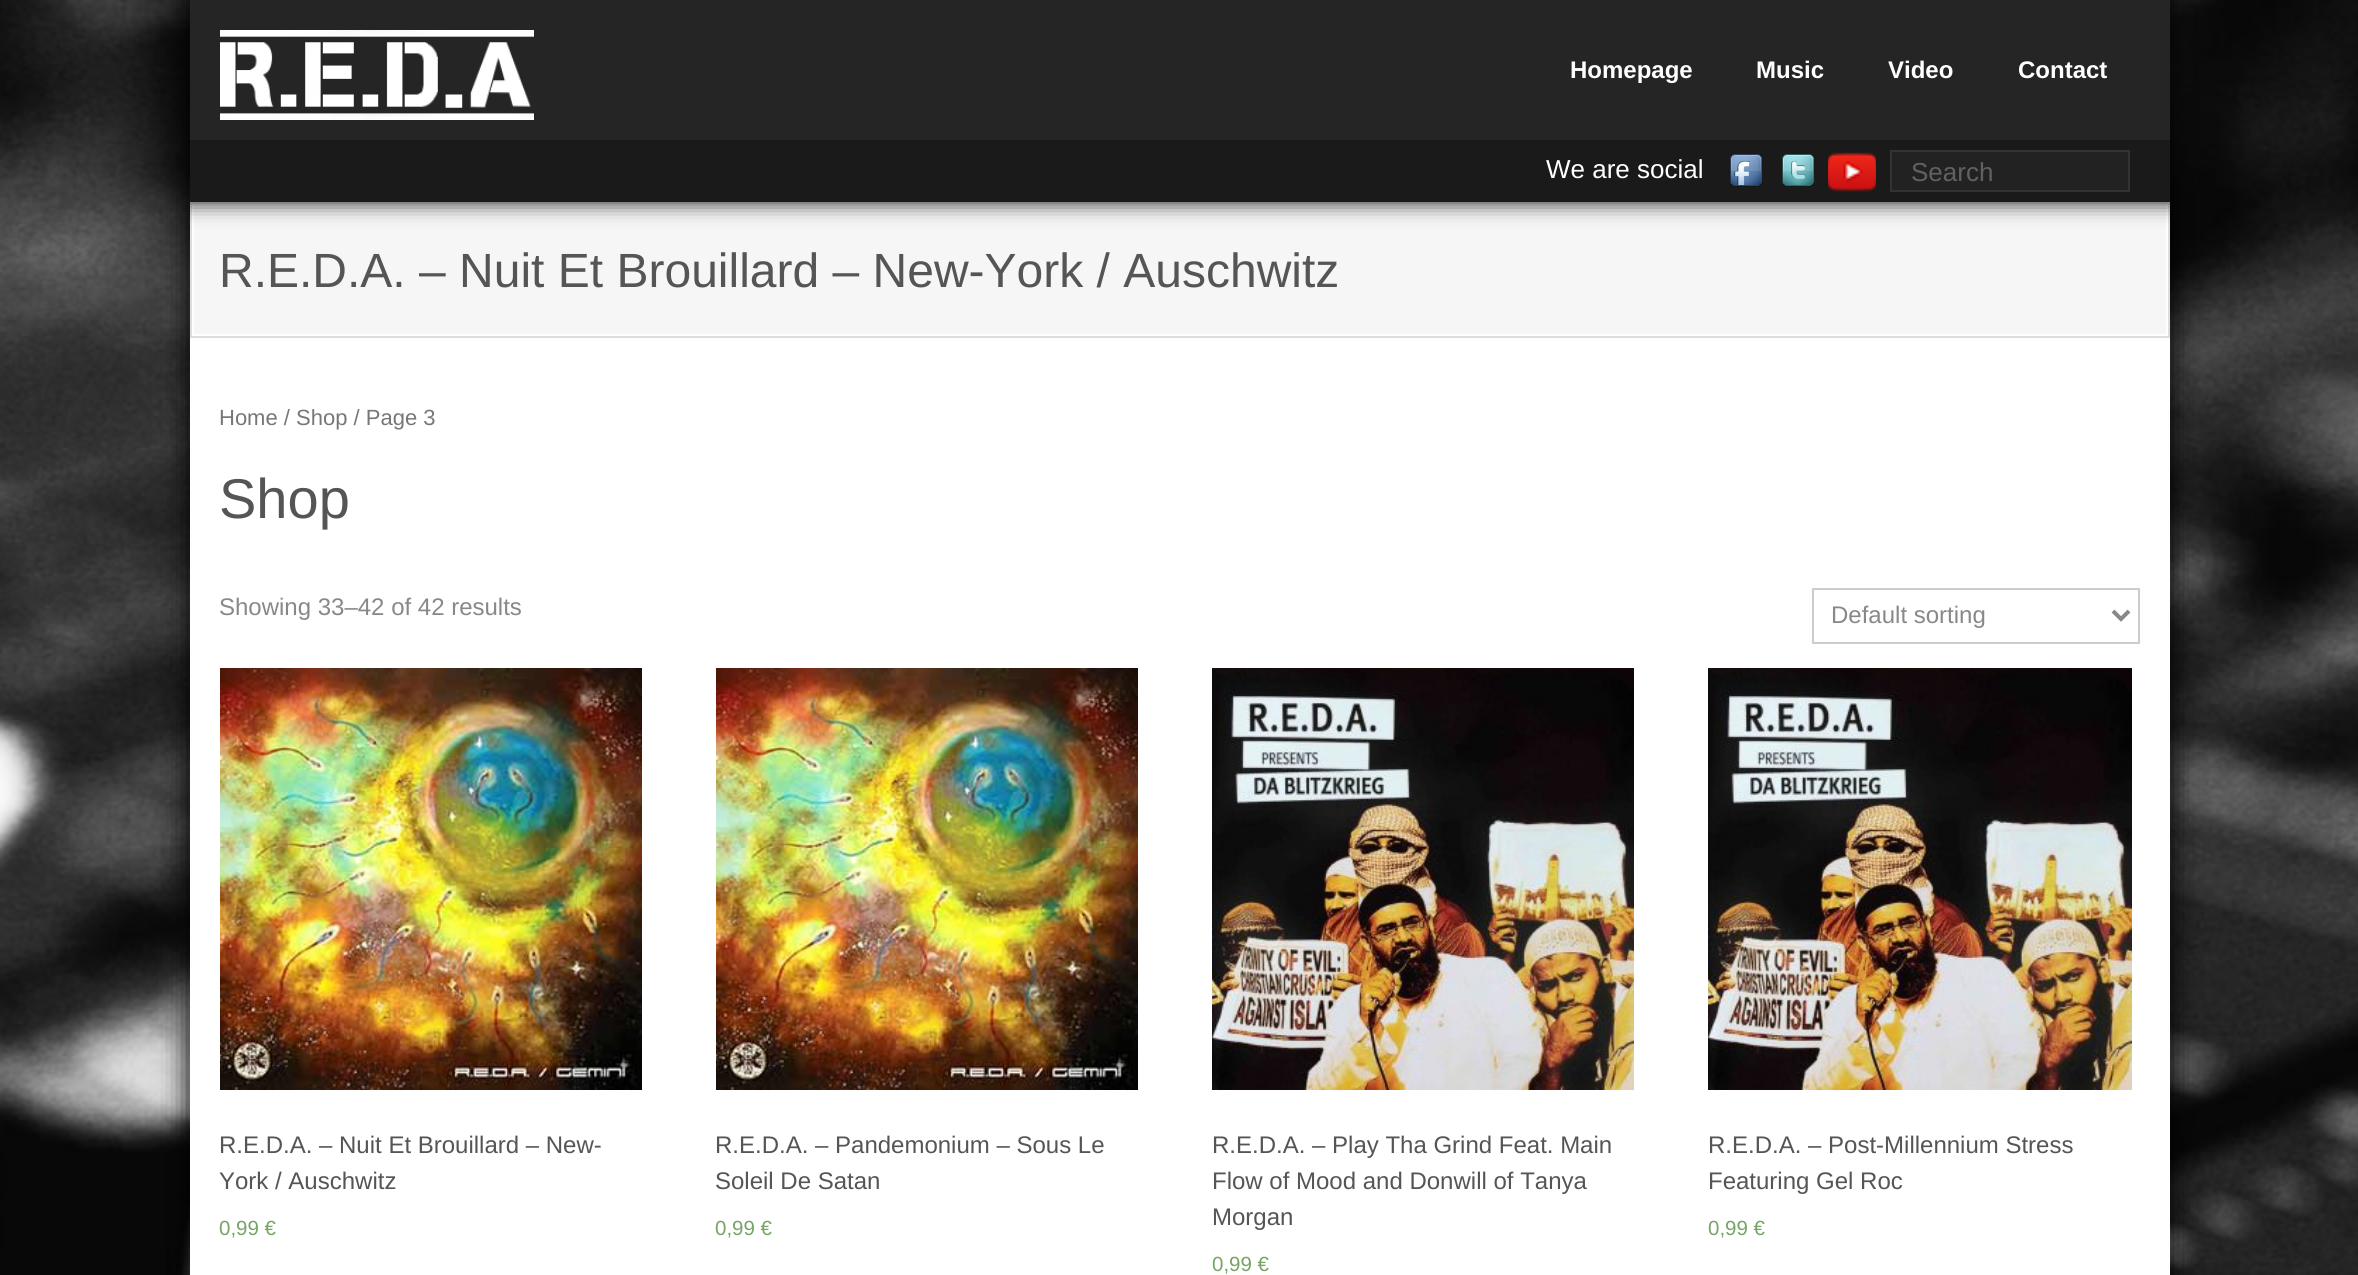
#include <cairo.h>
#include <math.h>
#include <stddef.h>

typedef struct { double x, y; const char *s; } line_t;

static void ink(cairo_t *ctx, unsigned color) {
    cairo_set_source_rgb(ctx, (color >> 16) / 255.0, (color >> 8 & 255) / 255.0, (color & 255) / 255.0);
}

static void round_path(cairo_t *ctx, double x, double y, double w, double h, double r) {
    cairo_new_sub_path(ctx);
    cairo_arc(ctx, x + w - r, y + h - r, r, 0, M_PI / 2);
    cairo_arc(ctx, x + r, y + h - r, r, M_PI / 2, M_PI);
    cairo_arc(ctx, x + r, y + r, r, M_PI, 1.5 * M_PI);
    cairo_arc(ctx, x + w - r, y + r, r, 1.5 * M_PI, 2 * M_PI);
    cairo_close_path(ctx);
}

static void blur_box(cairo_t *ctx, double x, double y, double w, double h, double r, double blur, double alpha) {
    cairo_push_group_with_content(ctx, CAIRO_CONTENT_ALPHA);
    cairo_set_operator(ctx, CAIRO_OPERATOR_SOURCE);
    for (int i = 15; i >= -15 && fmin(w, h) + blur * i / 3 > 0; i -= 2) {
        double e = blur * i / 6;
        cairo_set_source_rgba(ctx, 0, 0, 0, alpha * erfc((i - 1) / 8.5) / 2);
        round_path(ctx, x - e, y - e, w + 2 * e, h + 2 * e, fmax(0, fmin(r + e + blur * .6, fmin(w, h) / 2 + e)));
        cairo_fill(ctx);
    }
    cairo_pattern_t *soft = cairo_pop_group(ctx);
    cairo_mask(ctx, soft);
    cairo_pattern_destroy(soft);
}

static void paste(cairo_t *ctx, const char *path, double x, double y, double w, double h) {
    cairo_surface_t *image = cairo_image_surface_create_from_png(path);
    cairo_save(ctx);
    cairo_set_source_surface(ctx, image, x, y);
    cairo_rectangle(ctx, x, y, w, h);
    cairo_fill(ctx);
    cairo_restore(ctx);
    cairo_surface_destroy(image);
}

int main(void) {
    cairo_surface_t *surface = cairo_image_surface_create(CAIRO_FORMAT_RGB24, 2358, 1275);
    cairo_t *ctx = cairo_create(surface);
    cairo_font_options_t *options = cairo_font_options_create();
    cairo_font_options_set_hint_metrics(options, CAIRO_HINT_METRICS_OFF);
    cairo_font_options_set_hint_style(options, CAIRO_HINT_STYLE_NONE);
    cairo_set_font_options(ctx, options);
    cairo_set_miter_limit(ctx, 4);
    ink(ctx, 0xFFFFFF);
    cairo_paint(ctx);
    paste(ctx, "media/1.png", 0, 0, 2358, 1275);
    ink(ctx, 0x000000);
    blur_box(ctx, 188, -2, 1984, 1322, 0, 15, 1);
    ink(ctx, 0xFFFFFF);
    cairo_rectangle(ctx, 190, 338, 1980, 937);
    cairo_fill(ctx);
    ink(ctx, 0xF6F6F6);
    cairo_rectangle(ctx, 193, 205, 1974, 130);
    cairo_fill_preserve(ctx);
    ink(ctx, 0xFFFFFF);
    cairo_stroke(ctx);
    cairo_rectangle(ctx, 191, 203, 1978, 134);
    ink(ctx, 0xDDDDDD);
    cairo_stroke(ctx);
    cairo_save(ctx);
    cairo_rectangle(ctx, 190, 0, 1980, 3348);
    cairo_clip(ctx);
    ink(ctx, 0x333333);
    blur_box(ctx, 188, -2, 1984, 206, 0, 10, 1);
    cairo_restore(ctx);
    ink(ctx, 0x252525);
    cairo_rectangle(ctx, 190, 0, 1980, 140);
    cairo_fill(ctx);
    paste(ctx, "media/2.png", 220, 30, 314, 90);
    cairo_select_font_face(ctx, "Liberation Sans", CAIRO_FONT_SLANT_NORMAL, CAIRO_FONT_WEIGHT_BOLD);
    cairo_set_font_size(ctx, 24);
    ink(ctx, 0xFFFFFF);
    {
        static const line_t items[] = {
            {1570, 78, "Homepage"},
            {1756, 78, "Music"},
            {1888, 78, "Video"},
            {2018, 78, "Contact"},
        };
        for (size_t i = 0; i < sizeof items / sizeof *items; i++) {
            cairo_move_to(ctx, items[i].x, items[i].y);
            cairo_show_text(ctx, items[i].s);
        }
    }
    ink(ctx, 0x1A1A1A);
    cairo_rectangle(ctx, 190, 140, 1980, 62);
    cairo_fill(ctx);
    cairo_select_font_face(ctx, "Liberation Sans", CAIRO_FONT_SLANT_NORMAL, CAIRO_FONT_WEIGHT_NORMAL);
    cairo_set_font_size(ctx, 26);
    ink(ctx, 0xFFFFFF);
    cairo_move_to(ctx, 1546, 178);
    cairo_show_text(ctx, "We are social");
    paste(ctx, "media/3.png", 1730, 154, 32, 33);
    paste(ctx, "media/4.png", 1782, 154, 32, 33);
    paste(ctx, "media/5.png", 1828, 152, 48, 40);
    ink(ctx, 0x222222);
    cairo_rectangle(ctx, 1891, 151, 238, 40);
    cairo_fill_preserve(ctx);
    ink(ctx, 0x333333);
    cairo_stroke(ctx);
    ink(ctx, 0x616161);
    cairo_move_to(ctx, 1911, 181);
    cairo_show_text(ctx, "Search");
    cairo_set_font_size(ctx, 48);
    ink(ctx, 0x555555);
    cairo_move_to(ctx, 219, 287);
    cairo_show_text(ctx, "R.E.D.A. – Nuit Et Brouillard – New-York / Auschwitz");
    cairo_set_font_size(ctx, 22);
    ink(ctx, 0x777777);
    cairo_move_to(ctx, 219, 425);
    cairo_show_text(ctx, "Home / Shop / Page 3");
    cairo_set_font_size(ctx, 56);
    ink(ctx, 0x555555);
    cairo_move_to(ctx, 219, 518);
    cairo_show_text(ctx, "Shop");
    cairo_set_font_size(ctx, 24);
    ink(ctx, 0x888888);
    cairo_move_to(ctx, 219, 615);
    cairo_show_text(ctx, "Showing 33–42 of 42 results");
    cairo_rectangle(ctx, 1813, 589, 326, 54);
    ink(ctx, 0xCCCCCC);
    cairo_stroke(ctx);
    cairo_new_path(ctx);
    cairo_move_to(ctx, 2113, 611);
    cairo_line_to(ctx, 2121, 619);
    cairo_line_to(ctx, 2129, 611);
    ink(ctx, 0x888888);
    cairo_set_line_width(ctx, 4);
    cairo_stroke(ctx);
    cairo_move_to(ctx, 1831, 623);
    cairo_show_text(ctx, "Default sorting");
    paste(ctx, "media/6.png", 220, 668, 422, 422);
    ink(ctx, 0x555555);
    cairo_move_to(ctx, 219, 1153);
    cairo_show_text(ctx, "R.E.D.A. – Nuit Et Brouillard – New-");
    cairo_move_to(ctx, 219, 1189);
    cairo_show_text(ctx, "York / Auschwitz");
    cairo_set_font_size(ctx, 20.5);
    ink(ctx, 0x77A464);
    cairo_move_to(ctx, 219, 1235);
    cairo_show_text(ctx, "0,99 €");
    paste(ctx, "media/6.png", 716, 668, 422, 422);
    cairo_set_font_size(ctx, 24);
    ink(ctx, 0x555555);
    cairo_move_to(ctx, 715, 1153);
    cairo_show_text(ctx, "R.E.D.A. – Pandemonium – Sous Le");
    cairo_move_to(ctx, 715, 1189);
    cairo_show_text(ctx, "Soleil De Satan");
    cairo_set_font_size(ctx, 20.5);
    ink(ctx, 0x77A464);
    cairo_move_to(ctx, 715, 1235);
    cairo_show_text(ctx, "0,99 €");
    paste(ctx, "media/7.png", 1212, 668, 422, 422);
    cairo_set_font_size(ctx, 24);
    ink(ctx, 0x555555);
    {
        static const line_t items[] = {
            {1212, 1153, "R.E.D.A. – Play Tha Grind Feat. Main"},
            {1212, 1189, "Flow of Mood and Donwill of Tanya"},
            {1212, 1225, "Morgan"},
        };
        for (size_t i = 0; i < sizeof items / sizeof *items; i++) {
            cairo_move_to(ctx, items[i].x, items[i].y);
            cairo_show_text(ctx, items[i].s);
        }
    }
    cairo_set_font_size(ctx, 20.5);
    ink(ctx, 0x77A464);
    cairo_move_to(ctx, 1212, 1271);
    cairo_show_text(ctx, "0,99 €");
    paste(ctx, "media/8.png", 1708, 668, 424, 422);
    cairo_set_font_size(ctx, 24);
    ink(ctx, 0x555555);
    cairo_move_to(ctx, 1708, 1153);
    cairo_show_text(ctx, "R.E.D.A. – Post-Millennium Stress");
    cairo_move_to(ctx, 1708, 1189);
    cairo_show_text(ctx, "Featuring Gel Roc");
    cairo_set_font_size(ctx, 20.5);
    ink(ctx, 0x77A464);
    cairo_move_to(ctx, 1708, 1235);
    cairo_show_text(ctx, "0,99 €");
    cairo_surface_write_to_png(surface, "image.png");
    cairo_font_options_destroy(options);
    cairo_destroy(ctx);
    cairo_surface_destroy(surface);
    return 0;
}
